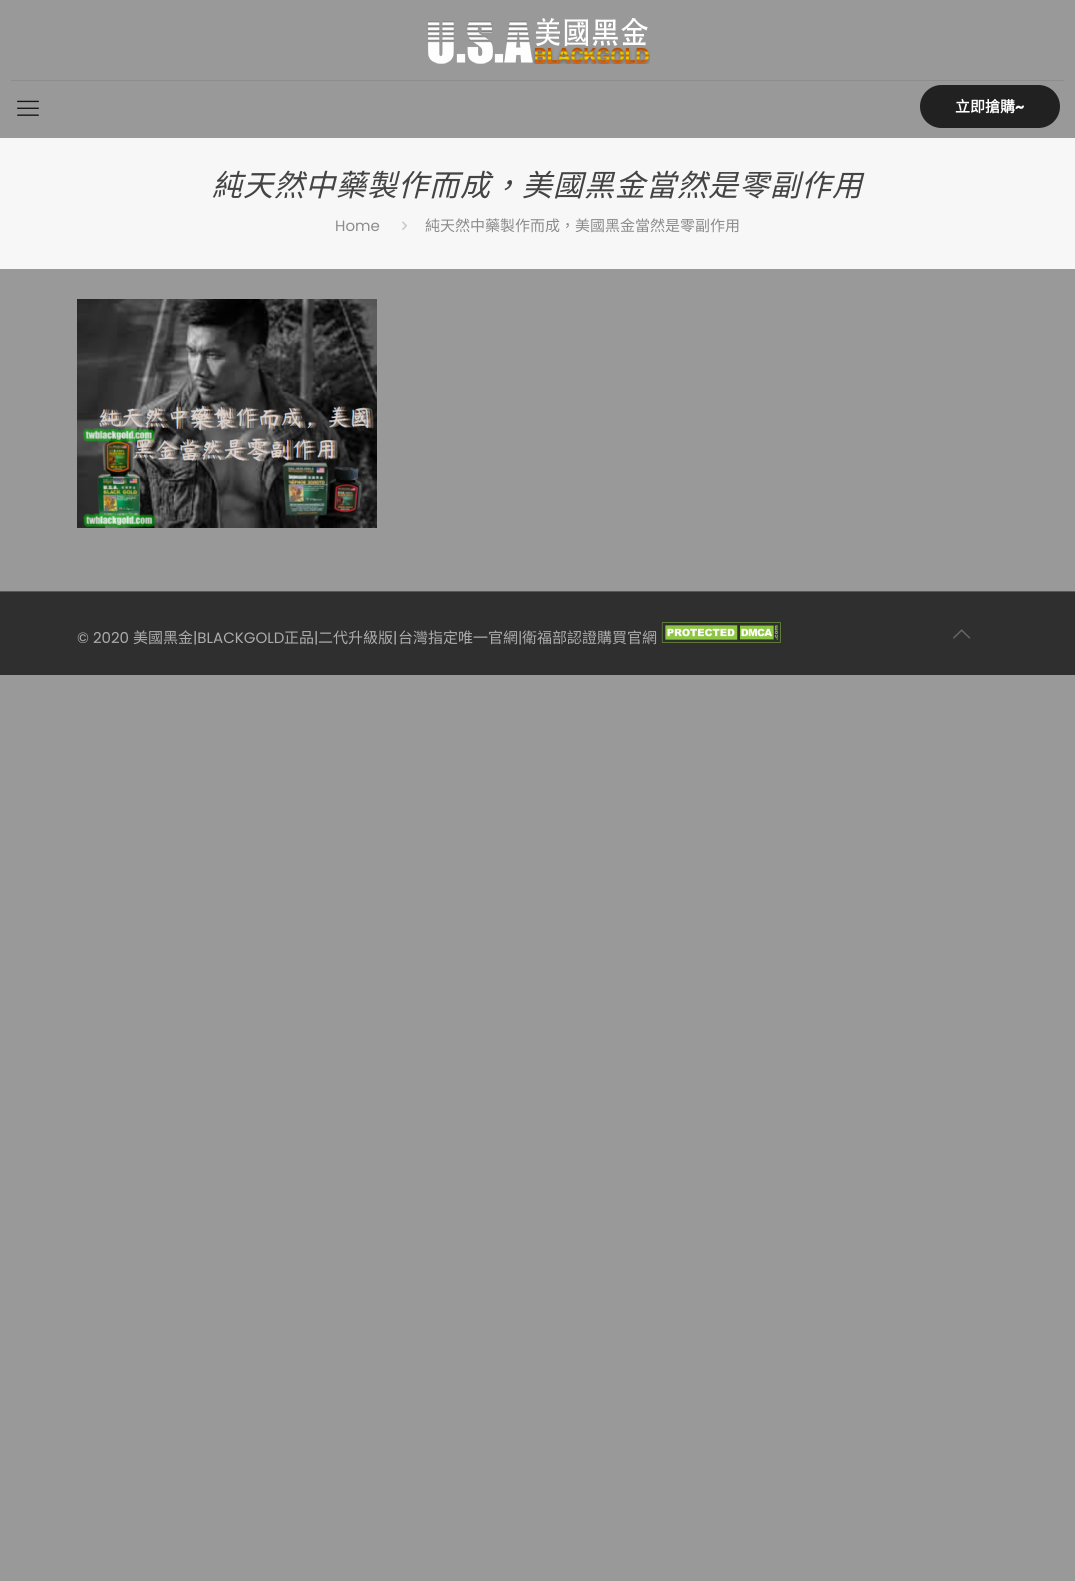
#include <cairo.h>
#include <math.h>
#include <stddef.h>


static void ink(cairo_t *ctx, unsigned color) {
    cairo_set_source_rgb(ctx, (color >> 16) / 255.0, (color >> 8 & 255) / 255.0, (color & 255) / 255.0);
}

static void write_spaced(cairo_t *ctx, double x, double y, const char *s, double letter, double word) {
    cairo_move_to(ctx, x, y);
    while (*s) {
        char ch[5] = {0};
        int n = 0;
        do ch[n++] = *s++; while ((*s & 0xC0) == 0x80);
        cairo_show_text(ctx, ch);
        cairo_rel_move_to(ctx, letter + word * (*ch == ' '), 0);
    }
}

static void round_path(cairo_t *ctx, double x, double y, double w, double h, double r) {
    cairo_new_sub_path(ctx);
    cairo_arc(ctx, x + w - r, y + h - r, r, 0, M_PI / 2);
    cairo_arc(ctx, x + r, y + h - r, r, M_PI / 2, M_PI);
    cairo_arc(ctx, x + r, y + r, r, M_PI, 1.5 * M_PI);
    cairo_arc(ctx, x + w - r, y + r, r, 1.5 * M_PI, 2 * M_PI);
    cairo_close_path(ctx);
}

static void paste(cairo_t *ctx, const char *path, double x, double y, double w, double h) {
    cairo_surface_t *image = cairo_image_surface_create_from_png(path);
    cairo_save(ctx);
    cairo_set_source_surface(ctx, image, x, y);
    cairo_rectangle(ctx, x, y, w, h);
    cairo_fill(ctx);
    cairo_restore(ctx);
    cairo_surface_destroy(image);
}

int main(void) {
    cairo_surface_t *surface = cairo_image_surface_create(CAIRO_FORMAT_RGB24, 1075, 1581);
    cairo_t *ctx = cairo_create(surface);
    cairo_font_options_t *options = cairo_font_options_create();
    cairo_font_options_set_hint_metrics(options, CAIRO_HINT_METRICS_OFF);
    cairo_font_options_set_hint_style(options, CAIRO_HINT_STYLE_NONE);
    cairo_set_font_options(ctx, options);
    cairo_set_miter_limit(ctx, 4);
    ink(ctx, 0x999999);
    cairo_paint(ctx);
    ink(ctx, 0x8D8D8D);
    cairo_rectangle(ctx, 11, 80, 1053, 1);
    cairo_fill(ctx);
    paste(ctx, "media/1.png", 427, 18, 223, 46);
    paste(ctx, "media/2.png", 17, 100, 22, 16);
    ink(ctx, 0x212121);
    round_path(ctx, 920, 85, 140, 43, 21.5);
    cairo_fill(ctx);
    cairo_select_font_face(ctx, "Noto Sans CJK TC", CAIRO_FONT_SLANT_NORMAL, CAIRO_FONT_WEIGHT_BOLD);
    cairo_set_font_size(ctx, 15);
    ink(ctx, 0xFFFFFF);
    cairo_move_to(ctx, 955, 112);
    cairo_show_text(ctx, "立即搶購");
    cairo_select_font_face(ctx, "Poppins", CAIRO_FONT_SLANT_NORMAL, CAIRO_FONT_WEIGHT_BOLD);
    cairo_move_to(ctx, 1015, 112);
    cairo_show_text(ctx, "~");
    ink(ctx, 0xF7F7F7);
    cairo_rectangle(ctx, 0, 138, 1075, 131);
    cairo_fill(ctx);
    cairo_select_font_face(ctx, "Noto Sans CJK TC", CAIRO_FONT_SLANT_ITALIC, CAIRO_FONT_WEIGHT_NORMAL);
    cairo_set_font_size(ctx, 30);
    ink(ctx, 0x444444);
    write_spaced(ctx, 212, 196, "純天然中藥製作而成，美國黑金當然是零副作用", 1, 0);
    cairo_select_font_face(ctx, "Poppins", CAIRO_FONT_SLANT_NORMAL, CAIRO_FONT_WEIGHT_NORMAL);
    cairo_set_font_size(ctx, 15);
    ink(ctx, 0x8C8C8C);
    cairo_move_to(ctx, 335, 231);
    cairo_show_text(ctx, "Home");
    paste(ctx, "media/3.png", 402, 221, 5, 9);
    cairo_select_font_face(ctx, "Noto Sans CJK TC", CAIRO_FONT_SLANT_NORMAL, CAIRO_FONT_WEIGHT_NORMAL);
    cairo_move_to(ctx, 425, 231);
    cairo_show_text(ctx, "純天然中藥製作而成，美國黑金當然是零副作用");
    paste(ctx, "media/4.png", 77, 299, 300, 229);
    ink(ctx, 0x2F2F2F);
    cairo_rectangle(ctx, 0, 592, 1075, 83);
    cairo_fill(ctx);
    ink(ctx, 0x585858);
    cairo_rectangle(ctx, 0, 591, 1075, 1);
    cairo_fill(ctx);
    cairo_select_font_face(ctx, "Poppins", CAIRO_FONT_SLANT_NORMAL, CAIRO_FONT_WEIGHT_NORMAL);
    ink(ctx, 0xACACAC);
    cairo_move_to(ctx, 77, 643);
    cairo_show_text(ctx, "© 2020");
    cairo_select_font_face(ctx, "Noto Sans CJK TC", CAIRO_FONT_SLANT_NORMAL, CAIRO_FONT_WEIGHT_NORMAL);
    cairo_move_to(ctx, 133, 643);
    cairo_show_text(ctx, "美國黑金");
    cairo_select_font_face(ctx, "Poppins", CAIRO_FONT_SLANT_NORMAL, CAIRO_FONT_WEIGHT_NORMAL);
    cairo_move_to(ctx, 193, 643);
    cairo_show_text(ctx, "|BLACKGOLD");
    cairo_select_font_face(ctx, "Noto Sans CJK TC", CAIRO_FONT_SLANT_NORMAL, CAIRO_FONT_WEIGHT_NORMAL);
    cairo_move_to(ctx, 284, 643);
    cairo_show_text(ctx, "正品");
    cairo_select_font_face(ctx, "Poppins", CAIRO_FONT_SLANT_NORMAL, CAIRO_FONT_WEIGHT_NORMAL);
    cairo_move_to(ctx, 314, 643);
    cairo_show_text(ctx, "|");
    cairo_select_font_face(ctx, "Noto Sans CJK TC", CAIRO_FONT_SLANT_NORMAL, CAIRO_FONT_WEIGHT_NORMAL);
    cairo_move_to(ctx, 318, 643);
    cairo_show_text(ctx, "二代升級版");
    cairo_select_font_face(ctx, "Poppins", CAIRO_FONT_SLANT_NORMAL, CAIRO_FONT_WEIGHT_NORMAL);
    cairo_move_to(ctx, 393, 643);
    cairo_show_text(ctx, "|");
    cairo_select_font_face(ctx, "Noto Sans CJK TC", CAIRO_FONT_SLANT_NORMAL, CAIRO_FONT_WEIGHT_NORMAL);
    cairo_move_to(ctx, 398, 643);
    cairo_show_text(ctx, "台灣指定唯一官網");
    cairo_select_font_face(ctx, "Poppins", CAIRO_FONT_SLANT_NORMAL, CAIRO_FONT_WEIGHT_NORMAL);
    cairo_move_to(ctx, 518, 643);
    cairo_show_text(ctx, "|");
    cairo_select_font_face(ctx, "Noto Sans CJK TC", CAIRO_FONT_SLANT_NORMAL, CAIRO_FONT_WEIGHT_NORMAL);
    cairo_move_to(ctx, 522, 643);
    cairo_show_text(ctx, "衛福部認證購買官網");
    paste(ctx, "media/5.png", 661, 622, 120, 21);
    paste(ctx, "media/6.png", 953, 629, 18, 10);
    cairo_surface_write_to_png(surface, "image.png");
    cairo_font_options_destroy(options);
    cairo_destroy(ctx);
    cairo_surface_destroy(surface);
    return 0;
}
